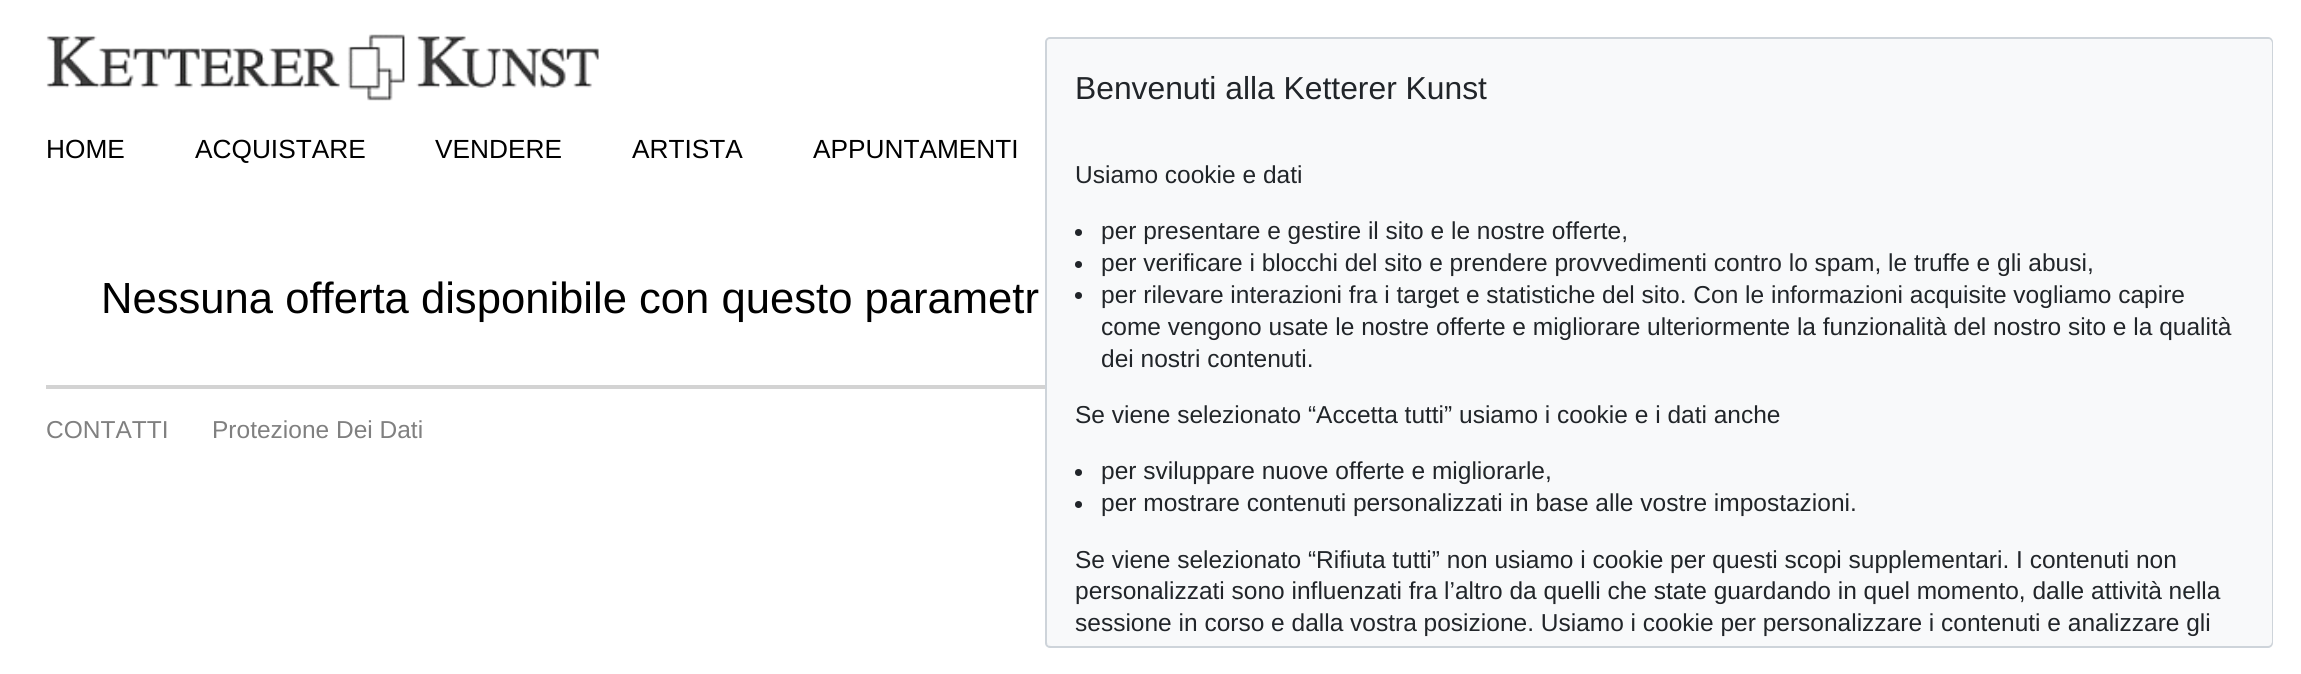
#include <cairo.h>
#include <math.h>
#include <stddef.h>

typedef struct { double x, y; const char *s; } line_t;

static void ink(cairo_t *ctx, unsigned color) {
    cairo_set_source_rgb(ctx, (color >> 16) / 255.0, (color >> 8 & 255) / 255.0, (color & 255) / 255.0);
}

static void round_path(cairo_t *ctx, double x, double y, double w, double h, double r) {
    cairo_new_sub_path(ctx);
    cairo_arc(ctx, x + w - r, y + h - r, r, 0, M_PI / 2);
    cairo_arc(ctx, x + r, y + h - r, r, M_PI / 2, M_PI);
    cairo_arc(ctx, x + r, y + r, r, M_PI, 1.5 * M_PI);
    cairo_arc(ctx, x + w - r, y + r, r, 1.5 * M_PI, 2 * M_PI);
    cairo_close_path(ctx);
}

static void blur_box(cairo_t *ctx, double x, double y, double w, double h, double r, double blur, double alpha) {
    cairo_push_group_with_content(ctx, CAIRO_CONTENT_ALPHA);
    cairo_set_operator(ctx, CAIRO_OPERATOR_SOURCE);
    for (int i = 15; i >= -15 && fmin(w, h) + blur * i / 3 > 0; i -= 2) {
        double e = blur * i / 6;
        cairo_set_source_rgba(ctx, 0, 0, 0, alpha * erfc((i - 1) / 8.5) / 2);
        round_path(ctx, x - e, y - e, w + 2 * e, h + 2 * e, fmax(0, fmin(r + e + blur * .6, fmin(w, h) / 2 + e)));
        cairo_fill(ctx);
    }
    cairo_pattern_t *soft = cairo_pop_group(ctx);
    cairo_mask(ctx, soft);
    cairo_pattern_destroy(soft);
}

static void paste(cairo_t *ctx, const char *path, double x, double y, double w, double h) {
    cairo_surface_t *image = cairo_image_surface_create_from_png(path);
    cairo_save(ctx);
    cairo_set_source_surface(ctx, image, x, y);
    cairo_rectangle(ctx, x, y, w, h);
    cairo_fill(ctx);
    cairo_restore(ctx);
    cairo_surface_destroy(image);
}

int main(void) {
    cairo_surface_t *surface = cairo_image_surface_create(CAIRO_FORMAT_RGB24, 2301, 674);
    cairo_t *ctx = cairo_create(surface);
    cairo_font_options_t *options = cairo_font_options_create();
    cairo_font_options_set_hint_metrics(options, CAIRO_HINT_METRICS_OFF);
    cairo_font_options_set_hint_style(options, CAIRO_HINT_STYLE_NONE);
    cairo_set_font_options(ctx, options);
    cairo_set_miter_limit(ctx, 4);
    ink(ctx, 0xFFFFFF);
    cairo_paint(ctx);
    paste(ctx, "media/1.png", 46, 34, 554, 67);
    cairo_select_font_face(ctx, "Liberation Sans", CAIRO_FONT_SLANT_NORMAL, CAIRO_FONT_WEIGHT_NORMAL);
    cairo_set_font_size(ctx, 26.25);
    ink(ctx, 0x000000);
    {
        static const line_t items[] = {
            {46, 158, "HOME"},
            {195, 158, "ACQUISTARE"},
            {435, 158, "VENDERE"},
            {632, 158, "ARTISTA"},
            {813, 158, "APPUNTAMENTI"},
        };
        for (size_t i = 0; i < sizeof items / sizeof *items; i++) {
            cairo_move_to(ctx, items[i].x, items[i].y);
            cairo_show_text(ctx, items[i].s);
        }
    }
    cairo_set_font_size(ctx, 43.6);
    cairo_move_to(ctx, 101, 313);
    cairo_show_text(ctx, "Nessuna offerta disponibile con questo parametr");
    ink(ctx, 0xD3D3D3);
    cairo_rectangle(ctx, 46, 385, 999, 4);
    cairo_fill(ctx);
    cairo_set_font_size(ctx, 24.5);
    ink(ctx, 0x808080);
    cairo_move_to(ctx, 46, 438);
    cairo_show_text(ctx, "CONTATTI");
    cairo_move_to(ctx, 212, 438);
    cairo_show_text(ctx, "Protezione Dei Dati");
    round_path(ctx, 1046, 38, 1226, 609, 4);
    ink(ctx, 0xCED4DA);
    cairo_stroke(ctx);
    cairo_save(ctx);
    round_path(ctx, 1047, 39, 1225, 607, 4);
    cairo_clip(ctx);
    ink(ctx, 0x000000);
    blur_box(ctx, 1047, 67, 1225, 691, 0, 28, 0.4);
    cairo_restore(ctx);
    ink(ctx, 0xF8F9FA);
    round_path(ctx, 1047, 39, 1225, 607, 4);
    cairo_fill(ctx);
    cairo_set_font_size(ctx, 31.8);
    ink(ctx, 0x212529);
    cairo_move_to(ctx, 1075, 99);
    cairo_show_text(ctx, "Benvenuti alla Ketterer Kunst");
    cairo_set_font_size(ctx, 24.5);
    cairo_move_to(ctx, 1075, 183);
    cairo_show_text(ctx, "Usiamo cookie e dati");
    cairo_new_path(ctx);
    cairo_arc(ctx, 1078.5, 232.5, 3.5, 0, 2 * M_PI);
    cairo_fill(ctx);
    cairo_move_to(ctx, 1101, 239);
    cairo_show_text(ctx, "per presentare e gestire il sito e le nostre offerte,");
    cairo_new_path(ctx);
    cairo_arc(ctx, 1078.5, 264.5, 3.5, 0, 2 * M_PI);
    cairo_fill(ctx);
    cairo_move_to(ctx, 1101, 271);
    cairo_show_text(ctx, "per verificare i blocchi del sito e prendere provvedimenti contro lo spam, le truffe e gli abusi,");
    cairo_new_path(ctx);
    cairo_arc(ctx, 1078.5, 295.5, 3.5, 0, 2 * M_PI);
    cairo_fill(ctx);
    {
        static const line_t items[] = {
            {1101, 303, "per rilevare interazioni fra i target e statistiche del sito. Con le informazioni acquisite vogliamo capire"},
            {1101, 335, "come vengono usate le nostre offerte e migliorare ulteriormente la funzionalità del nostro sito e la qualità"},
            {1101, 367, "dei nostri contenuti."},
            {1075, 423, "Se viene selezionato “Accetta tutti” usiamo i cookie e i dati anche"},
        };
        for (size_t i = 0; i < sizeof items / sizeof *items; i++) {
            cairo_move_to(ctx, items[i].x, items[i].y);
            cairo_show_text(ctx, items[i].s);
        }
    }
    cairo_new_path(ctx);
    cairo_arc(ctx, 1078.5, 472.5, 3.5, 0, 2 * M_PI);
    cairo_fill(ctx);
    cairo_move_to(ctx, 1101, 479);
    cairo_show_text(ctx, "per sviluppare nuove offerte e migliorarle,");
    cairo_new_path(ctx);
    cairo_arc(ctx, 1078.5, 504.5, 3.5, 0, 2 * M_PI);
    cairo_fill(ctx);
    {
        static const line_t items[] = {
            {1101, 511, "per mostrare contenuti personalizzati in base alle vostre impostazioni."},
            {1075, 568, "Se viene selezionato “Rifiuta tutti” non usiamo i cookie per questi scopi supplementari. I contenuti non"},
            {1075, 599, "personalizzati sono influenzati fra l’altro da quelli che state guardando in quel momento, dalle attività nella"},
            {1075, 631, "sessione in corso e dalla vostra posizione. Usiamo i cookie per personalizzare i contenuti e analizzare gli"},
        };
        for (size_t i = 0; i < sizeof items / sizeof *items; i++) {
            cairo_move_to(ctx, items[i].x, items[i].y);
            cairo_show_text(ctx, items[i].s);
        }
    }
    cairo_surface_write_to_png(surface, "image.png");
    cairo_font_options_destroy(options);
    cairo_destroy(ctx);
    cairo_surface_destroy(surface);
    return 0;
}
